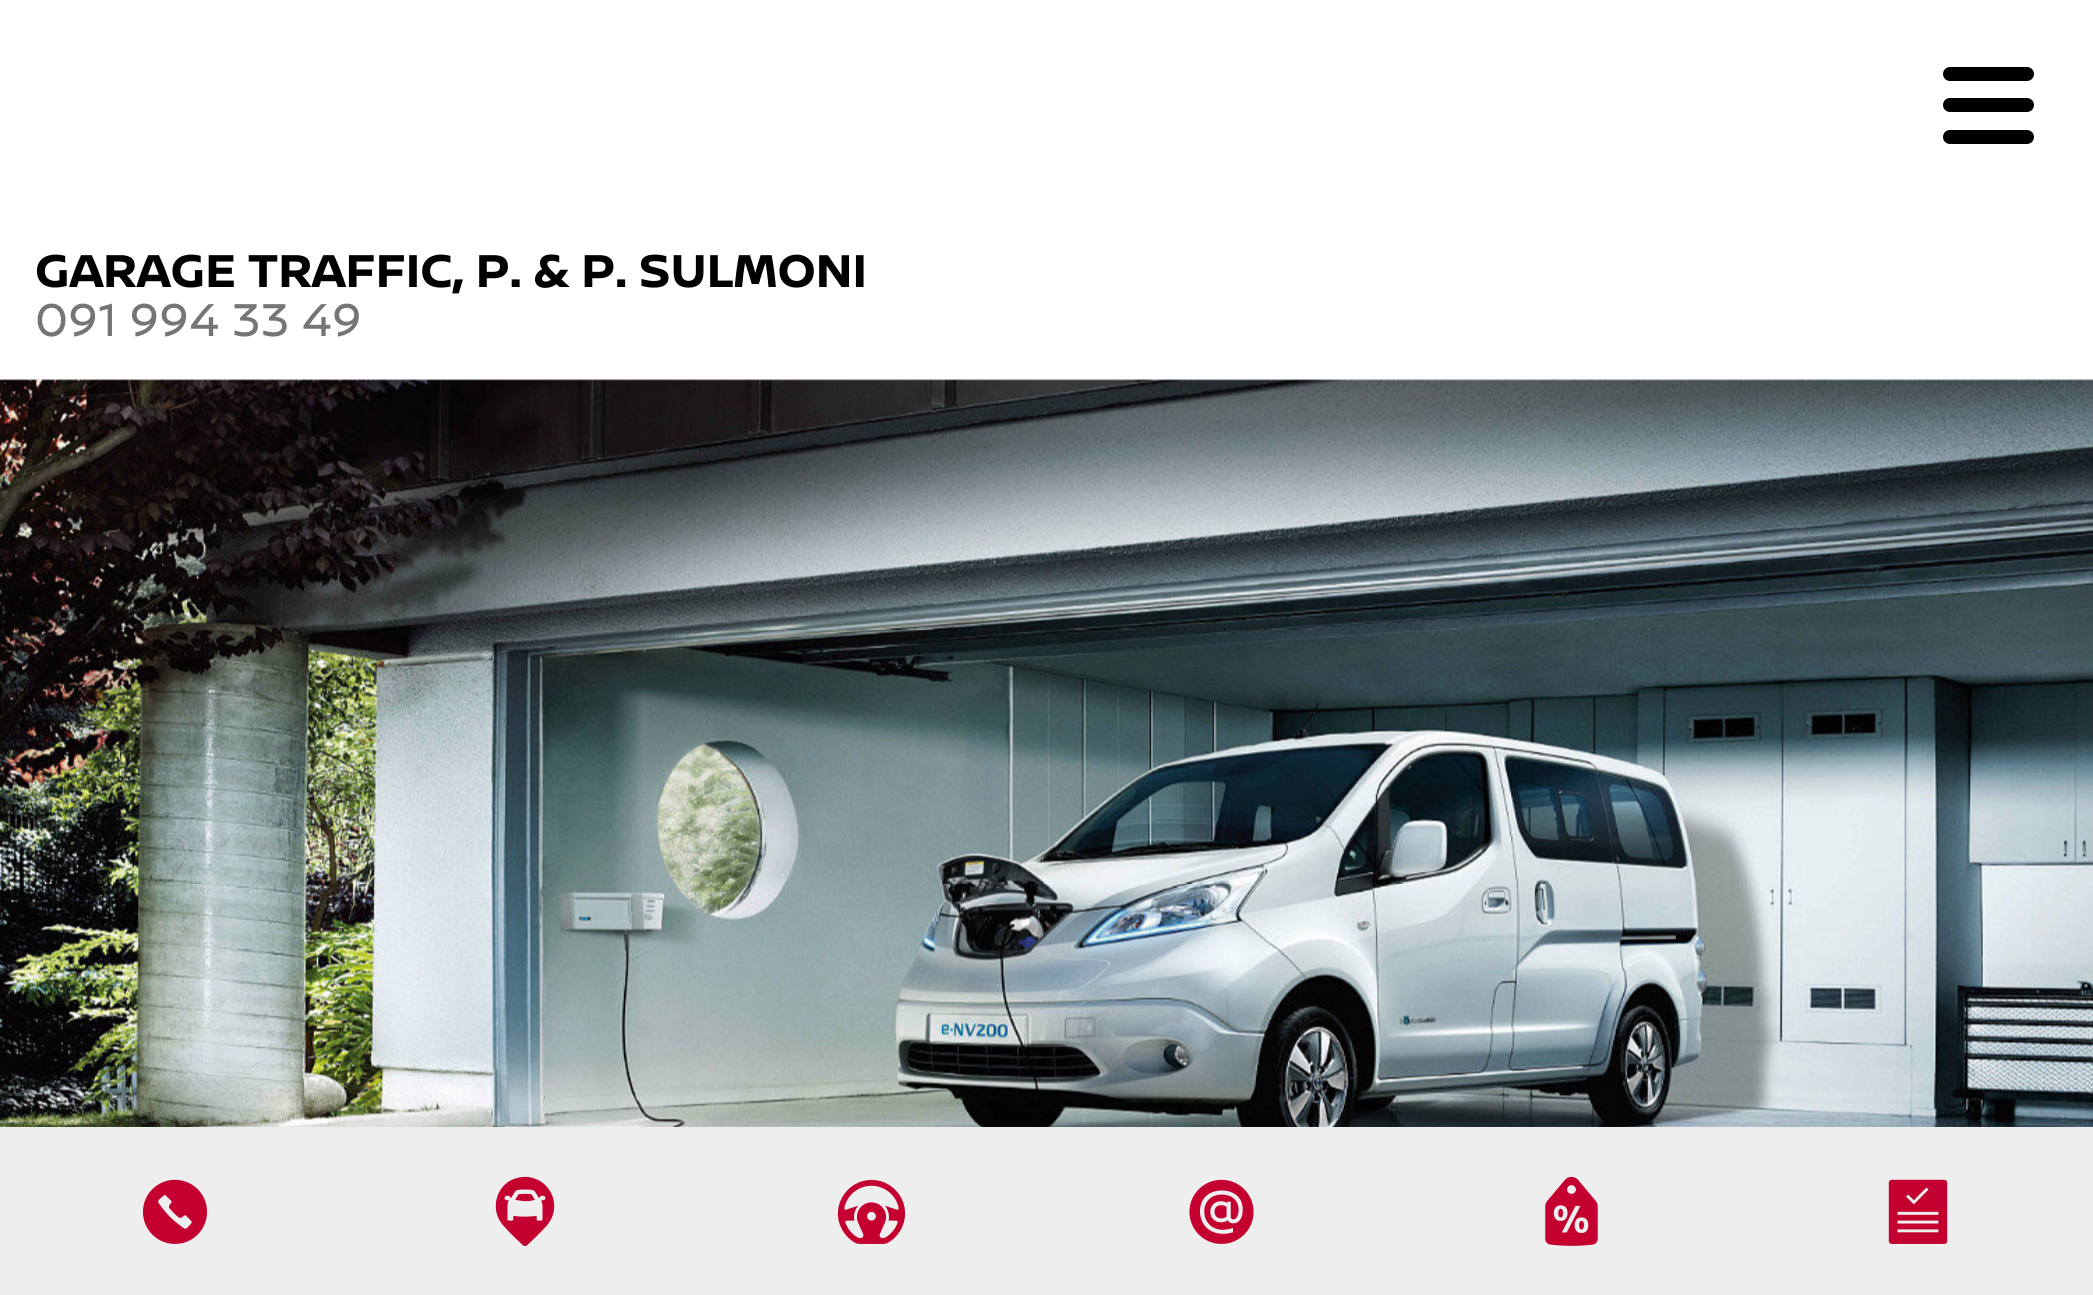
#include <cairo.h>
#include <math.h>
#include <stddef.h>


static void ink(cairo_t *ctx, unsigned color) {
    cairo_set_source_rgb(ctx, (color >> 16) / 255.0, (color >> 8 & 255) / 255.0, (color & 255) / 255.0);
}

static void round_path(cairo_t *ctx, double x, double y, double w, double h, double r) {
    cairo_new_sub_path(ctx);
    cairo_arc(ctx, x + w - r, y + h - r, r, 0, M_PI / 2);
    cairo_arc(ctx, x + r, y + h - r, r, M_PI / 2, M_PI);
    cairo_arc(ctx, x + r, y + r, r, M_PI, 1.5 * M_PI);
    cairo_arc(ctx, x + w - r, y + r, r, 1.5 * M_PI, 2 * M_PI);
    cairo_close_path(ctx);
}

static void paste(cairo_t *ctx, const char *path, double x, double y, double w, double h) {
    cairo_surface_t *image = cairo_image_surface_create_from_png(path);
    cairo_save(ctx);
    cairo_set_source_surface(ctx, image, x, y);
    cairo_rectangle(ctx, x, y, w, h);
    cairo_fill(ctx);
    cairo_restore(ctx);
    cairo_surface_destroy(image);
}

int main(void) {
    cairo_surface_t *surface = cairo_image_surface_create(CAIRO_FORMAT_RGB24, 2093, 1295);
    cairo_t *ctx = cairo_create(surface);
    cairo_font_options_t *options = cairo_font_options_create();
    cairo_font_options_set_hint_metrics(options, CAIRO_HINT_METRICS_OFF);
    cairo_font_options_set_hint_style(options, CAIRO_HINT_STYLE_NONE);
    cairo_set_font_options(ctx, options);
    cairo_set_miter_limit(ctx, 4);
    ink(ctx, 0xFFFFFF);
    cairo_paint(ctx);
    ink(ctx, 0x000000);
    round_path(ctx, 1943, 98, 91, 14, 7);
    cairo_fill(ctx);
    round_path(ctx, 1943, 67, 91, 14, 7);
    cairo_fill(ctx);
    round_path(ctx, 1943, 130, 91, 14, 7);
    cairo_fill(ctx);
    cairo_select_font_face(ctx, "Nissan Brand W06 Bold", CAIRO_FONT_SLANT_NORMAL, CAIRO_FONT_WEIGHT_BOLD);
    cairo_set_font_size(ctx, 49);
    cairo_move_to(ctx, 35, 287);
    cairo_show_text(ctx, "GARAGE TRAFFIC, P. & P. SULMONI");
    cairo_select_font_face(ctx, "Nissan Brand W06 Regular", CAIRO_FONT_SLANT_NORMAL, CAIRO_FONT_WEIGHT_NORMAL);
    ink(ctx, 0x757575);
    cairo_move_to(ctx, 35, 336);
    cairo_show_text(ctx, "091 994 33 49");
    paste(ctx, "media/1.png", 0, 379, 2093, 748);
    ink(ctx, 0xEEEEEE);
    cairo_rectangle(ctx, 0, 1127, 2093, 168);
    cairo_fill(ctx);
    paste(ctx, "media/2.png", 142, 1179, 66, 65);
    paste(ctx, "media/3.png", 495, 1176, 60, 70);
    paste(ctx, "media/4.png", 837, 1179, 69, 65);
    paste(ctx, "media/5.png", 1189, 1179, 65, 65);
    paste(ctx, "media/6.png", 1545, 1176, 53, 70);
    paste(ctx, "media/7.png", 1888, 1179, 60, 65);
    cairo_surface_write_to_png(surface, "image.png");
    cairo_font_options_destroy(options);
    cairo_destroy(ctx);
    cairo_surface_destroy(surface);
    return 0;
}
